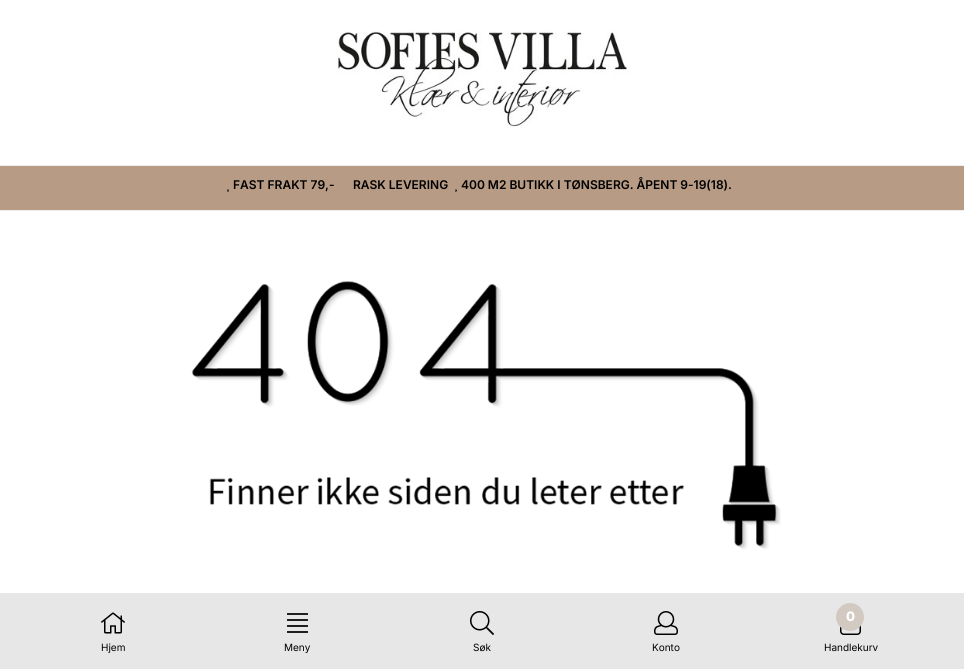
#include <cairo.h>
#include <math.h>
#include <stddef.h>

typedef struct { double x, y, w, h; unsigned color; } box_t;

static void ink(cairo_t *ctx, unsigned color) {
    cairo_set_source_rgb(ctx, (color >> 16) / 255.0, (color >> 8 & 255) / 255.0, (color & 255) / 255.0);
}

static void paste(cairo_t *ctx, const char *path, double x, double y, double w, double h) {
    cairo_surface_t *image = cairo_image_surface_create_from_png(path);
    cairo_save(ctx);
    cairo_set_source_surface(ctx, image, x, y);
    cairo_rectangle(ctx, x, y, w, h);
    cairo_fill(ctx);
    cairo_restore(ctx);
    cairo_surface_destroy(image);
}

int main(void) {
    cairo_surface_t *surface = cairo_image_surface_create(CAIRO_FORMAT_RGB24, 964, 669);
    cairo_t *ctx = cairo_create(surface);
    cairo_font_options_t *options = cairo_font_options_create();
    cairo_font_options_set_hint_metrics(options, CAIRO_HINT_METRICS_OFF);
    cairo_font_options_set_hint_style(options, CAIRO_HINT_STYLE_NONE);
    cairo_set_font_options(ctx, options);
    cairo_set_miter_limit(ctx, 4);
    ink(ctx, 0xFFFFFF);
    cairo_paint(ctx);
    paste(ctx, "media/1.png", 336, 31, 293, 97);
    {
        static const box_t items[] = {
            {0, 166, 964, 44, 0xB79B85},
            {0, 165, 964, 1, 0xEEEEEE},
            {0, 210, 964, 1, 0xEEEEEE},
        };
        for (size_t i = 0; i < sizeof items / sizeof *items; i++) {
            ink(ctx, items[i].color);
            cairo_rectangle(ctx, items[i].x, items[i].y, items[i].w, items[i].h);
            cairo_fill(ctx);
        }
    }
    paste(ctx, "media/2.png", 227, 189, 2, 3);
    cairo_select_font_face(ctx, "Inter SemiBold", CAIRO_FONT_SLANT_NORMAL, CAIRO_FONT_WEIGHT_NORMAL);
    cairo_set_font_size(ctx, 12);
    ink(ctx, 0x000000);
    cairo_move_to(ctx, 233, 189);
    cairo_show_text(ctx, "FAST FRAKT 79,-");
    cairo_move_to(ctx, 353, 189);
    cairo_show_text(ctx, "RASK LEVERING");
    paste(ctx, "media/2.png", 455, 189, 2, 3);
    cairo_move_to(ctx, 461, 189);
    cairo_show_text(ctx, "400 M2 BUTIKK I TØNSBERG. ÅPENT 9-19(18).");
    paste(ctx, "media/3.png", 191, 281, 590, 269);
    ink(ctx, 0xE7E7E7);
    cairo_rectangle(ctx, 0, 593, 964, 76);
    cairo_fill(ctx);
    paste(ctx, "media/4.png", 101, 612, 24, 22);
    cairo_select_font_face(ctx, "Inter", CAIRO_FONT_SLANT_NORMAL, CAIRO_FONT_WEIGHT_NORMAL);
    cairo_set_font_size(ctx, 10);
    ink(ctx, 0x000000);
    cairo_move_to(ctx, 101, 651);
    cairo_show_text(ctx, "Hjem");
    paste(ctx, "media/5.png", 287, 613, 21, 20);
    cairo_move_to(ctx, 284, 651);
    cairo_show_text(ctx, "Meny");
    paste(ctx, "media/6.png", 470, 611, 24, 24);
    cairo_move_to(ctx, 473, 651);
    cairo_show_text(ctx, "Søk");
    paste(ctx, "media/7.png", 654, 611, 24, 24);
    cairo_move_to(ctx, 652, 651);
    cairo_show_text(ctx, "Konto");
    paste(ctx, "media/8.png", 840, 625, 21, 10);
    ink(ctx, 0xD2C9C1);
    cairo_arc(ctx, 850, 617, 13, 0, 2 * M_PI);
    cairo_fill_preserve(ctx);
    cairo_stroke(ctx);
    cairo_select_font_face(ctx, "Inter ExtraBold", CAIRO_FONT_SLANT_NORMAL, CAIRO_FONT_WEIGHT_NORMAL);
    cairo_set_font_size(ctx, 13);
    ink(ctx, 0xFFFFFF);
    cairo_move_to(ctx, 846, 621);
    cairo_show_text(ctx, "0");
    cairo_select_font_face(ctx, "Inter", CAIRO_FONT_SLANT_NORMAL, CAIRO_FONT_WEIGHT_NORMAL);
    cairo_set_font_size(ctx, 10);
    ink(ctx, 0x000000);
    cairo_move_to(ctx, 824, 651);
    cairo_show_text(ctx, "Handlekurv");
    cairo_surface_write_to_png(surface, "image.png");
    cairo_font_options_destroy(options);
    cairo_destroy(ctx);
    cairo_surface_destroy(surface);
    return 0;
}
